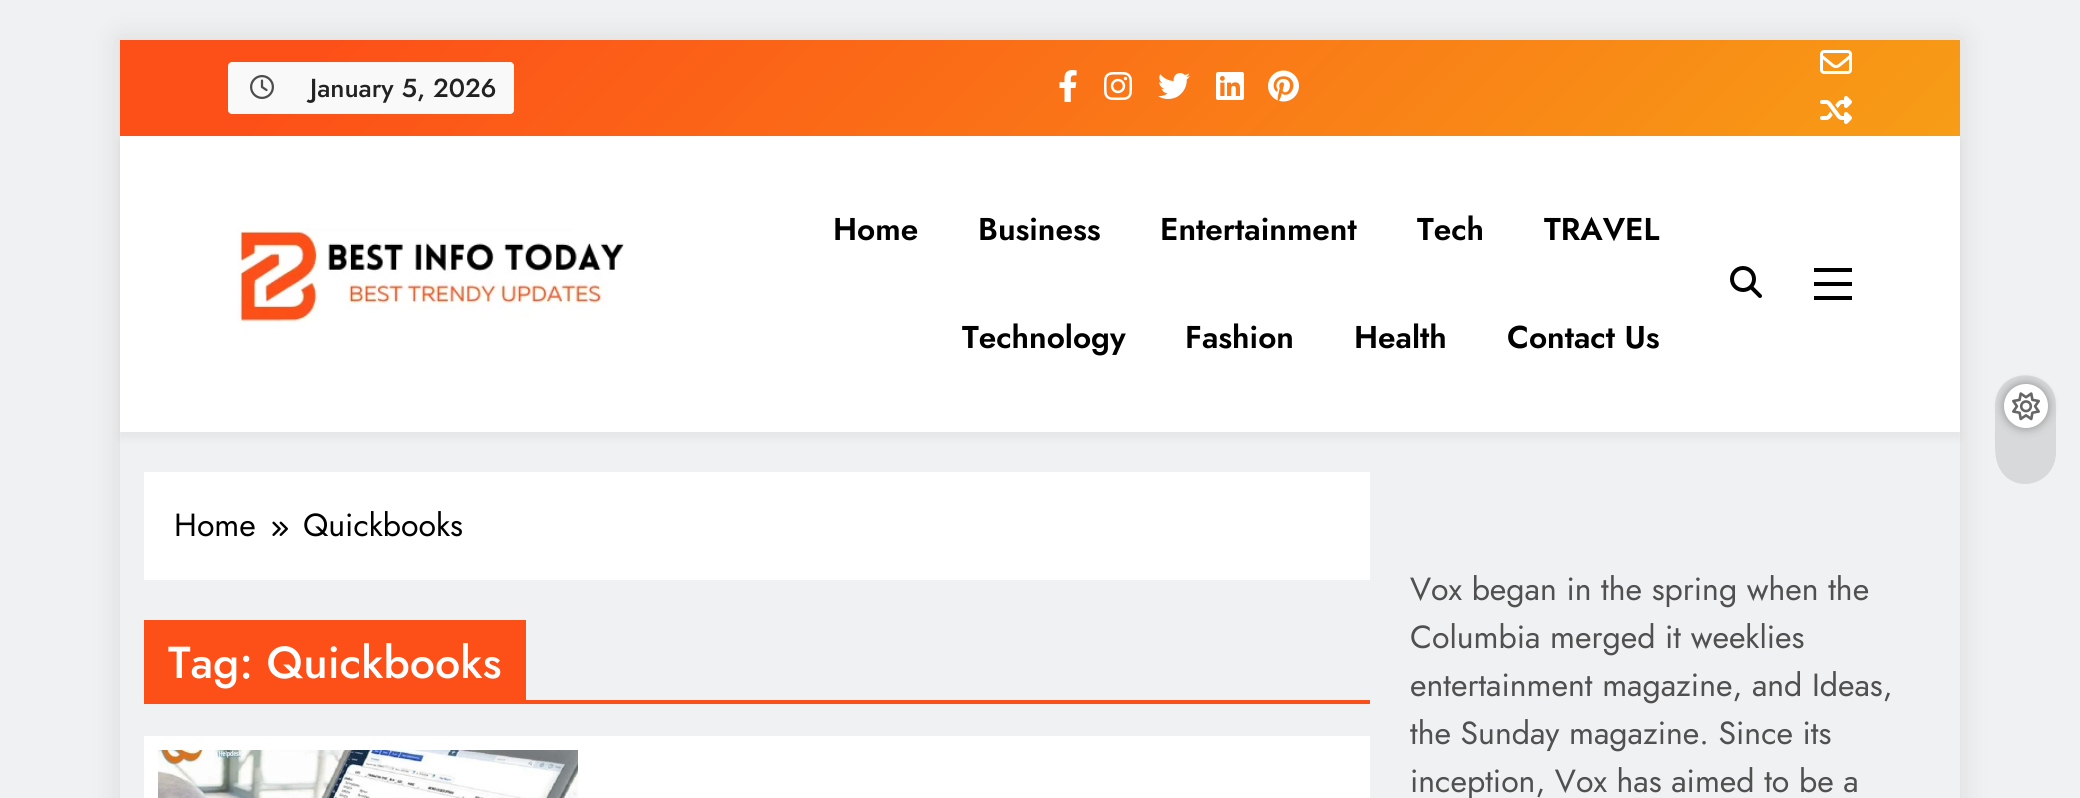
#include <cairo.h>
#include <math.h>
#include <stddef.h>

typedef struct { double x, y; const char *s; } line_t;
typedef struct { double x, y, w, h; unsigned color; } box_t;

static void ink(cairo_t *ctx, unsigned color) {
    cairo_set_source_rgb(ctx, (color >> 16) / 255.0, (color >> 8 & 255) / 255.0, (color & 255) / 255.0);
}

static void round_path(cairo_t *ctx, double x, double y, double w, double h, double r) {
    cairo_new_sub_path(ctx);
    cairo_arc(ctx, x + w - r, y + h - r, r, 0, M_PI / 2);
    cairo_arc(ctx, x + r, y + h - r, r, M_PI / 2, M_PI);
    cairo_arc(ctx, x + r, y + r, r, M_PI, 1.5 * M_PI);
    cairo_arc(ctx, x + w - r, y + r, r, 1.5 * M_PI, 2 * M_PI);
    cairo_close_path(ctx);
}

static void blur_box(cairo_t *ctx, double x, double y, double w, double h, double r, double blur, double alpha) {
    cairo_push_group_with_content(ctx, CAIRO_CONTENT_ALPHA);
    cairo_set_operator(ctx, CAIRO_OPERATOR_SOURCE);
    for (int i = 15; i >= -15 && fmin(w, h) + blur * i / 3 > 0; i -= 2) {
        double e = blur * i / 6;
        cairo_set_source_rgba(ctx, 0, 0, 0, alpha * erfc((i - 1) / 8.5) / 2);
        round_path(ctx, x - e, y - e, w + 2 * e, h + 2 * e, fmax(0, fmin(r + e + blur * .6, fmin(w, h) / 2 + e)));
        cairo_fill(ctx);
    }
    cairo_pattern_t *soft = cairo_pop_group(ctx);
    cairo_mask(ctx, soft);
    cairo_pattern_destroy(soft);
}

static void paste(cairo_t *ctx, const char *path, double x, double y, double w, double h) {
    cairo_surface_t *image = cairo_image_surface_create_from_png(path);
    cairo_save(ctx);
    cairo_set_source_surface(ctx, image, x, y);
    cairo_rectangle(ctx, x, y, w, h);
    cairo_fill(ctx);
    cairo_restore(ctx);
    cairo_surface_destroy(image);
}

int main(void) {
    cairo_surface_t *surface = cairo_image_surface_create(CAIRO_FORMAT_RGB24, 2080, 798);
    cairo_t *ctx = cairo_create(surface);
    cairo_font_options_t *options = cairo_font_options_create();
    cairo_font_options_set_hint_metrics(options, CAIRO_HINT_METRICS_OFF);
    cairo_font_options_set_hint_style(options, CAIRO_HINT_STYLE_NONE);
    cairo_set_font_options(ctx, options);
    cairo_set_miter_limit(ctx, 4);
    cairo_pattern_t *gradient;
    ink(ctx, 0xF0F1F2);
    cairo_paint(ctx);
    cairo_save(ctx);
    cairo_set_fill_rule(ctx, CAIRO_FILL_RULE_EVEN_ODD);
    cairo_new_path(ctx);
    cairo_move_to(ctx, 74, 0);
    cairo_line_to(ctx, 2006, 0);
    cairo_line_to(ctx, 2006, 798);
    cairo_line_to(ctx, 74, 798);
    cairo_close_path(ctx);
    cairo_move_to(ctx, 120, 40);
    cairo_line_to(ctx, 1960, 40);
    cairo_line_to(ctx, 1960, 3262);
    cairo_line_to(ctx, 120, 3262);
    cairo_close_path(ctx);
    cairo_clip(ctx);
    ink(ctx, 0x000000);
    blur_box(ctx, 120, 40, 1840, 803, 0, 15, 0.1);
    cairo_restore(ctx);
    gradient = cairo_pattern_create_linear(556, -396, 1524, 572);
    cairo_pattern_add_color_stop_rgba(gradient, 0.1, 0.992, 0.31, 0.094, 1);
    cairo_pattern_add_color_stop_rgba(gradient, 1, 0.969, 0.616, 0.086, 1);
    cairo_set_source(ctx, gradient);
    cairo_pattern_destroy(gradient);
    cairo_rectangle(ctx, 120, 40, 1840, 96);
    cairo_fill(ctx);
    ink(ctx, 0xF9F9F9);
    round_path(ctx, 228, 62, 286, 52, 4);
    cairo_fill(ctx);
    paste(ctx, "media/1.png", 250, 75, 24, 24);
    cairo_select_font_face(ctx, "Jost Medium", CAIRO_FONT_SLANT_NORMAL, CAIRO_FONT_WEIGHT_NORMAL);
    cairo_set_font_size(ctx, 26);
    ink(ctx, 0x222222);
    cairo_move_to(ctx, 310, 97);
    cairo_show_text(ctx, "January 5, 2026");
    paste(ctx, "media/2.png", 1059, 70, 18, 32);
    paste(ctx, "media/3.png", 1104, 72, 28, 28);
    paste(ctx, "media/4.png", 1158, 73, 32, 26);
    paste(ctx, "media/5.png", 1216, 72, 28, 28);
    paste(ctx, "media/6.png", 1268, 70, 31, 32);
    paste(ctx, "media/7.png", 1820, 50, 32, 24);
    paste(ctx, "media/8.png", 1820, 96, 32, 28);
    ink(ctx, 0x000000);
    blur_box(ctx, 120, 142, 1840, 296, 0, 4, 0.05);
    ink(ctx, 0xFFFFFF);
    cairo_rectangle(ctx, 120, 136, 1840, 296);
    cairo_fill(ctx);
    paste(ctx, "media/9.png", 237, 228, 387, 95);
    cairo_select_font_face(ctx, "Jost SemiBold", CAIRO_FONT_SLANT_NORMAL, CAIRO_FONT_WEIGHT_NORMAL);
    cairo_set_font_size(ctx, 31.5);
    ink(ctx, 0x000000);
    {
        static const line_t items[] = {
            {833, 240, "Home"},
            {978, 240, "Business"},
            {1160, 240, "Entertainment"},
            {1417, 240, "Tech"},
            {1544, 240, "TRAVEL"},
            {962, 348, "Technology"},
            {1185, 348, "Fashion"},
            {1354, 348, "Health"},
            {1507, 348, "Contact Us"},
        };
        for (size_t i = 0; i < sizeof items / sizeof *items; i++) {
            cairo_move_to(ctx, items[i].x, items[i].y);
            cairo_show_text(ctx, items[i].s);
        }
    }
    paste(ctx, "media/10.png", 1730, 266, 32, 32);
    {
        static const box_t items[] = {
            {1814, 268, 38, 4, 0x000000},
            {1814, 282, 38, 4, 0x000000},
            {1814, 296, 38, 4, 0x000000},
        };
        for (size_t i = 0; i < sizeof items / sizeof *items; i++) {
            ink(ctx, items[i].color);
            cairo_rectangle(ctx, items[i].x, items[i].y, items[i].w, items[i].h);
            cairo_fill(ctx);
        }
    }
    ink(ctx, 0xD8D9DA);
    cairo_new_path(ctx);
    cairo_move_to(ctx, 2056, 405);
    cairo_line_to(ctx, 2056, 453);
    cairo_curve_to(ctx, 2055, 487, 2010, 496, 1998, 465);
    cairo_curve_to(ctx, 1994, 456, 1995, 440, 1995, 429);
    cairo_line_to(ctx, 1995, 405);
    cairo_curve_to(ctx, 1997, 364, 2056, 367, 2056, 405);
    cairo_close_path(ctx);
    cairo_fill(ctx);
    ink(ctx, 0x000000);
    blur_box(ctx, 2004, 384, 44, 44, 22, 5, 0.35);
    ink(ctx, 0xFFFFFF);
    cairo_arc(ctx, 2026, 406, 22, 0, 2 * M_PI);
    cairo_fill(ctx);
    paste(ctx, "media/11.png", 2012, 392, 28, 29);
    cairo_rectangle(ctx, 144, 472, 1226, 108);
    cairo_fill(ctx);
    cairo_select_font_face(ctx, "Jost", CAIRO_FONT_SLANT_NORMAL, CAIRO_FONT_WEIGHT_NORMAL);
    cairo_set_font_size(ctx, 32);
    ink(ctx, 0x000000);
    cairo_move_to(ctx, 174, 536);
    cairo_show_text(ctx, "Home");
    paste(ctx, "media/12.png", 272, 521, 16, 15);
    cairo_move_to(ctx, 303, 536);
    cairo_show_text(ctx, "Quickbooks");
    ink(ctx, 0xFD4F18);
    cairo_rectangle(ctx, 526, 700, 844, 4);
    cairo_fill(ctx);
    cairo_rectangle(ctx, 144, 620, 382, 84);
    cairo_fill(ctx);
    cairo_select_font_face(ctx, "Jost Medium", CAIRO_FONT_SLANT_NORMAL, CAIRO_FONT_WEIGHT_NORMAL);
    cairo_set_font_size(ctx, 44.75);
    ink(ctx, 0xFFFFFF);
    cairo_move_to(ctx, 168, 678);
    cairo_show_text(ctx, "Tag: Quickbooks");
    cairo_rectangle(ctx, 144, 736, 1226, 62);
    cairo_fill(ctx);
    paste(ctx, "media/13.png", 158, 750, 420, 48);
    cairo_select_font_face(ctx, "Jost", CAIRO_FONT_SLANT_NORMAL, CAIRO_FONT_WEIGHT_NORMAL);
    cairo_set_font_size(ctx, 32);
    ink(ctx, 0x505050);
    {
        static const line_t items[] = {
            {1410, 600, "Vox began in the spring when the"},
            {1410, 648, "Columbia merged it weeklies"},
            {1410, 696, "entertainment magazine, and Ideas,"},
            {1410, 744, "the Sunday magazine. Since its"},
            {1410, 792, "inception, Vox has aimed to be a"},
        };
        for (size_t i = 0; i < sizeof items / sizeof *items; i++) {
            cairo_move_to(ctx, items[i].x, items[i].y);
            cairo_show_text(ctx, items[i].s);
        }
    }
    cairo_surface_write_to_png(surface, "image.png");
    cairo_font_options_destroy(options);
    cairo_destroy(ctx);
    cairo_surface_destroy(surface);
    return 0;
}
